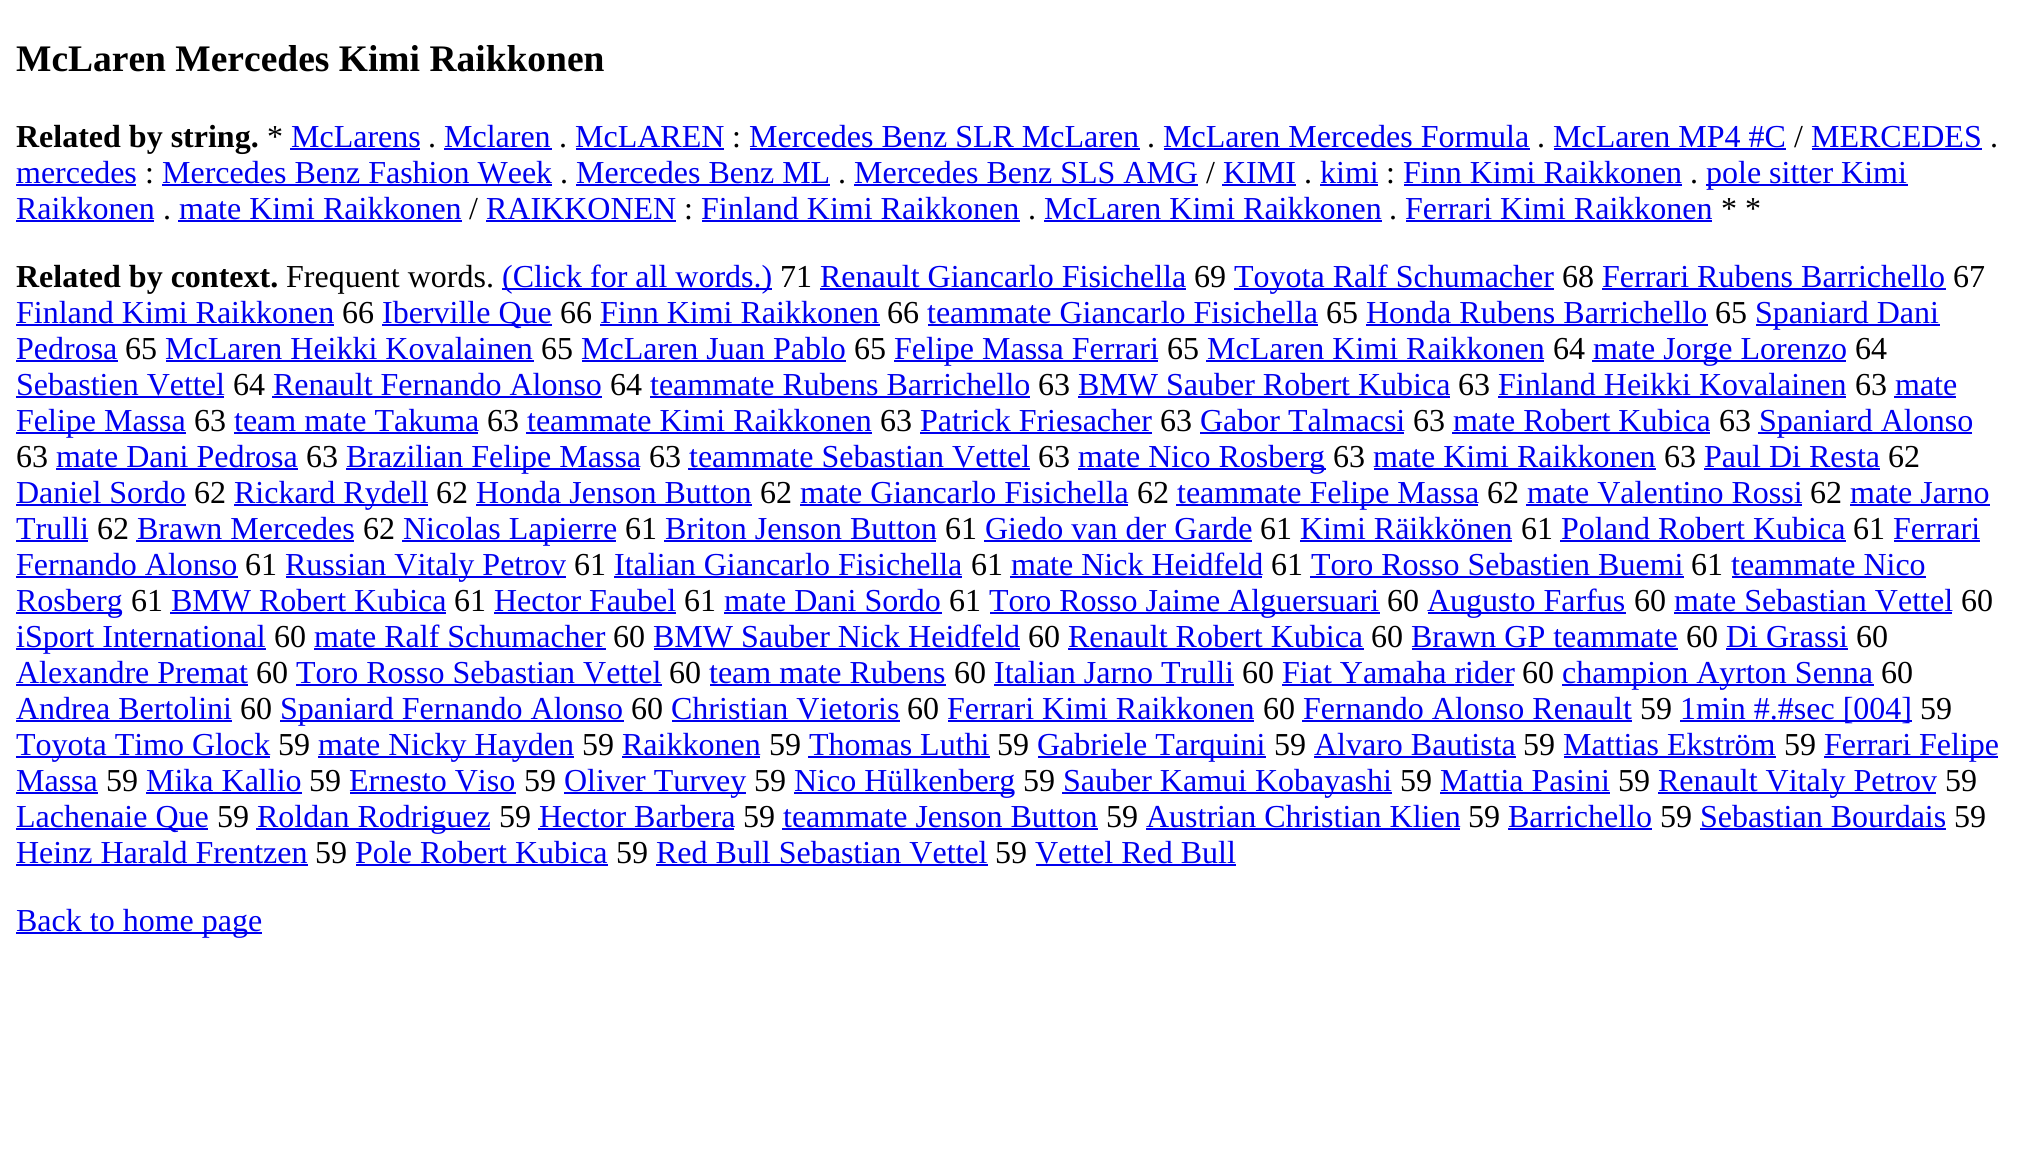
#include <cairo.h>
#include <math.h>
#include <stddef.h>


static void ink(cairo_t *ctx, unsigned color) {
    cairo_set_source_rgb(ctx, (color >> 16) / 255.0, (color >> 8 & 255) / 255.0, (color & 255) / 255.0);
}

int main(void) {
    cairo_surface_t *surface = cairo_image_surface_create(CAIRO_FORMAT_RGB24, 2025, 1174);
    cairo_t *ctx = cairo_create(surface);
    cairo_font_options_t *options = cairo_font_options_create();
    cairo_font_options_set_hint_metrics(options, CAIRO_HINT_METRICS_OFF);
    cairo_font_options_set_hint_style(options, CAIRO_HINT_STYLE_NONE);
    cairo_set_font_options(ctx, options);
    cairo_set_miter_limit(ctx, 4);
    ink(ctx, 0xFFFFFF);
    cairo_paint(ctx);
    cairo_select_font_face(ctx, "Liberation Serif", CAIRO_FONT_SLANT_NORMAL, CAIRO_FONT_WEIGHT_BOLD);
    cairo_set_font_size(ctx, 37.5);
    ink(ctx, 0x000000);
    cairo_move_to(ctx, 16, 71);
    cairo_show_text(ctx, "McLaren Mercedes Kimi Raikkonen");
    cairo_set_font_size(ctx, 32);
    cairo_move_to(ctx, 16, 147);
    cairo_show_text(ctx, "Related by string.");
    cairo_select_font_face(ctx, "Liberation Serif", CAIRO_FONT_SLANT_NORMAL, CAIRO_FONT_WEIGHT_NORMAL);
    cairo_move_to(ctx, 267, 147);
    cairo_show_text(ctx, "*");
    ink(ctx, 0x0000EE);
    cairo_move_to(ctx, 291, 147);
    cairo_show_text(ctx, "McLarens");
    cairo_rectangle(ctx, 290, 148, 130, 2);
    cairo_fill(ctx);
    ink(ctx, 0x000000);
    cairo_move_to(ctx, 428, 147);
    cairo_show_text(ctx, ".");
    ink(ctx, 0x0000EE);
    cairo_move_to(ctx, 444, 147);
    cairo_show_text(ctx, "Mclaren");
    cairo_rectangle(ctx, 444, 148, 108, 2);
    cairo_fill(ctx);
    ink(ctx, 0x000000);
    cairo_move_to(ctx, 559, 147);
    cairo_show_text(ctx, ".");
    ink(ctx, 0x0000EE);
    cairo_move_to(ctx, 575, 147);
    cairo_show_text(ctx, "McLAREN");
    cairo_rectangle(ctx, 576, 148, 148, 2);
    cairo_fill(ctx);
    ink(ctx, 0x000000);
    cairo_move_to(ctx, 732, 147);
    cairo_show_text(ctx, ":");
    ink(ctx, 0x0000EE);
    cairo_move_to(ctx, 749, 147);
    cairo_show_text(ctx, "Mercedes Benz SLR McLaren");
    cairo_rectangle(ctx, 750, 148, 390, 2);
    cairo_fill(ctx);
    ink(ctx, 0x000000);
    cairo_move_to(ctx, 1147, 147);
    cairo_show_text(ctx, ".");
    ink(ctx, 0x0000EE);
    cairo_move_to(ctx, 1163, 147);
    cairo_show_text(ctx, "McLaren Mercedes Formula");
    cairo_rectangle(ctx, 1164, 148, 366, 2);
    cairo_fill(ctx);
    ink(ctx, 0x000000);
    cairo_move_to(ctx, 1537, 147);
    cairo_show_text(ctx, ".");
    ink(ctx, 0x0000EE);
    cairo_move_to(ctx, 1553, 147);
    cairo_show_text(ctx, "McLaren MP4 #C");
    cairo_rectangle(ctx, 1554, 148, 232, 2);
    cairo_fill(ctx);
    ink(ctx, 0x000000);
    cairo_move_to(ctx, 1794, 147);
    cairo_show_text(ctx, "/");
    ink(ctx, 0x0000EE);
    cairo_move_to(ctx, 1811, 147);
    cairo_show_text(ctx, "MERCEDES");
    cairo_rectangle(ctx, 1812, 148, 170, 2);
    cairo_fill(ctx);
    ink(ctx, 0x000000);
    cairo_move_to(ctx, 1990, 147);
    cairo_show_text(ctx, ".");
    ink(ctx, 0x0000EE);
    cairo_move_to(ctx, 16, 183);
    cairo_show_text(ctx, "mercedes");
    cairo_rectangle(ctx, 16, 184, 120, 2);
    cairo_fill(ctx);
    ink(ctx, 0x000000);
    cairo_move_to(ctx, 145, 183);
    cairo_show_text(ctx, ":");
    ink(ctx, 0x0000EE);
    cairo_move_to(ctx, 162, 183);
    cairo_show_text(ctx, "Mercedes Benz Fashion Week");
    cairo_rectangle(ctx, 162, 184, 390, 2);
    cairo_fill(ctx);
    ink(ctx, 0x000000);
    cairo_move_to(ctx, 560, 183);
    cairo_show_text(ctx, ".");
    ink(ctx, 0x0000EE);
    cairo_move_to(ctx, 576, 183);
    cairo_show_text(ctx, "Mercedes Benz ML");
    cairo_rectangle(ctx, 576, 184, 254, 2);
    cairo_fill(ctx);
    ink(ctx, 0x000000);
    cairo_move_to(ctx, 838, 183);
    cairo_show_text(ctx, ".");
    ink(ctx, 0x0000EE);
    cairo_move_to(ctx, 854, 183);
    cairo_show_text(ctx, "Mercedes Benz SLS AMG");
    cairo_rectangle(ctx, 854, 184, 344, 2);
    cairo_fill(ctx);
    ink(ctx, 0x000000);
    cairo_move_to(ctx, 1206, 183);
    cairo_show_text(ctx, "/");
    ink(ctx, 0x0000EE);
    cairo_move_to(ctx, 1223, 183);
    cairo_show_text(ctx, "KIMI");
    cairo_rectangle(ctx, 1222, 184, 74, 2);
    cairo_fill(ctx);
    ink(ctx, 0x000000);
    cairo_move_to(ctx, 1304, 183);
    cairo_show_text(ctx, ".");
    ink(ctx, 0x0000EE);
    cairo_move_to(ctx, 1320, 183);
    cairo_show_text(ctx, "kimi");
    cairo_rectangle(ctx, 1320, 184, 58, 2);
    cairo_fill(ctx);
    ink(ctx, 0x000000);
    cairo_move_to(ctx, 1386, 183);
    cairo_show_text(ctx, ":");
    ink(ctx, 0x0000EE);
    cairo_move_to(ctx, 1403, 183);
    cairo_show_text(ctx, "Finn Kimi Raikkonen");
    cairo_rectangle(ctx, 1404, 184, 278, 2);
    cairo_fill(ctx);
    ink(ctx, 0x000000);
    cairo_move_to(ctx, 1690, 183);
    cairo_show_text(ctx, ".");
    ink(ctx, 0x0000EE);
    cairo_rectangle(ctx, 1706, 184, 202, 2);
    cairo_fill(ctx);
    cairo_move_to(ctx, 1706, 183);
    cairo_show_text(ctx, "pole sitter Kimi");
    cairo_move_to(ctx, 16, 219);
    cairo_show_text(ctx, "Raikkonen");
    cairo_rectangle(ctx, 16, 220, 138, 2);
    cairo_fill(ctx);
    ink(ctx, 0x000000);
    cairo_move_to(ctx, 163, 219);
    cairo_show_text(ctx, ".");
    ink(ctx, 0x0000EE);
    cairo_move_to(ctx, 179, 219);
    cairo_show_text(ctx, "mate Kimi Raikkonen");
    cairo_rectangle(ctx, 178, 220, 284, 2);
    cairo_fill(ctx);
    ink(ctx, 0x000000);
    cairo_move_to(ctx, 469, 219);
    cairo_show_text(ctx, "/");
    ink(ctx, 0x0000EE);
    cairo_move_to(ctx, 486, 219);
    cairo_show_text(ctx, "RAIKKONEN");
    cairo_rectangle(ctx, 486, 220, 190, 2);
    cairo_fill(ctx);
    ink(ctx, 0x000000);
    cairo_move_to(ctx, 684, 219);
    cairo_show_text(ctx, ":");
    ink(ctx, 0x0000EE);
    cairo_move_to(ctx, 701, 219);
    cairo_show_text(ctx, "Finland Kimi Raikkonen");
    cairo_rectangle(ctx, 702, 220, 318, 2);
    cairo_fill(ctx);
    ink(ctx, 0x000000);
    cairo_move_to(ctx, 1028, 219);
    cairo_show_text(ctx, ".");
    ink(ctx, 0x0000EE);
    cairo_move_to(ctx, 1044, 219);
    cairo_show_text(ctx, "McLaren Kimi Raikkonen");
    cairo_rectangle(ctx, 1044, 220, 338, 2);
    cairo_fill(ctx);
    ink(ctx, 0x000000);
    cairo_move_to(ctx, 1389, 219);
    cairo_show_text(ctx, ".");
    ink(ctx, 0x0000EE);
    cairo_move_to(ctx, 1405, 219);
    cairo_show_text(ctx, "Ferrari Kimi Raikkonen");
    cairo_rectangle(ctx, 1406, 220, 306, 2);
    cairo_fill(ctx);
    ink(ctx, 0x000000);
    cairo_move_to(ctx, 1721, 219);
    cairo_show_text(ctx, "* *");
    cairo_select_font_face(ctx, "Liberation Serif", CAIRO_FONT_SLANT_NORMAL, CAIRO_FONT_WEIGHT_BOLD);
    cairo_move_to(ctx, 16, 287);
    cairo_show_text(ctx, "Related by context.");
    cairo_select_font_face(ctx, "Liberation Serif", CAIRO_FONT_SLANT_NORMAL, CAIRO_FONT_WEIGHT_NORMAL);
    cairo_move_to(ctx, 286, 287);
    cairo_show_text(ctx, "Frequent words.");
    ink(ctx, 0x0000EE);
    cairo_rectangle(ctx, 502, 288, 270, 2);
    cairo_fill(ctx);
    cairo_move_to(ctx, 502, 287);
    cairo_show_text(ctx, "(Click for all words.)");
    ink(ctx, 0x000000);
    cairo_move_to(ctx, 780, 287);
    cairo_show_text(ctx, "71");
    ink(ctx, 0x0000EE);
    cairo_move_to(ctx, 820, 287);
    cairo_show_text(ctx, "Renault Giancarlo Fisichella");
    cairo_rectangle(ctx, 820, 288, 366, 2);
    cairo_fill(ctx);
    ink(ctx, 0x000000);
    cairo_move_to(ctx, 1194, 287);
    cairo_show_text(ctx, "69");
    ink(ctx, 0x0000EE);
    cairo_rectangle(ctx, 1234, 288, 320, 2);
    cairo_fill(ctx);
    cairo_move_to(ctx, 1234, 287);
    cairo_show_text(ctx, "Toyota Ralf Schumacher");
    ink(ctx, 0x000000);
    cairo_move_to(ctx, 1562, 287);
    cairo_show_text(ctx, "68");
    ink(ctx, 0x0000EE);
    cairo_move_to(ctx, 1602, 287);
    cairo_show_text(ctx, "Ferrari Rubens Barrichello");
    cairo_rectangle(ctx, 1602, 288, 344, 2);
    cairo_fill(ctx);
    ink(ctx, 0x000000);
    cairo_move_to(ctx, 1953, 287);
    cairo_show_text(ctx, "67");
    ink(ctx, 0x0000EE);
    cairo_move_to(ctx, 16, 323);
    cairo_show_text(ctx, "Finland Kimi Raikkonen");
    cairo_rectangle(ctx, 16, 324, 318, 2);
    cairo_fill(ctx);
    ink(ctx, 0x000000);
    cairo_move_to(ctx, 342, 323);
    cairo_show_text(ctx, "66");
    ink(ctx, 0x0000EE);
    cairo_rectangle(ctx, 382, 324, 170, 2);
    cairo_fill(ctx);
    cairo_move_to(ctx, 382, 323);
    cairo_show_text(ctx, "Iberville Que");
    ink(ctx, 0x000000);
    cairo_move_to(ctx, 560, 323);
    cairo_show_text(ctx, "66");
    ink(ctx, 0x0000EE);
    cairo_move_to(ctx, 600, 323);
    cairo_show_text(ctx, "Finn Kimi Raikkonen");
    cairo_rectangle(ctx, 600, 324, 280, 2);
    cairo_fill(ctx);
    ink(ctx, 0x000000);
    cairo_move_to(ctx, 887, 323);
    cairo_show_text(ctx, "66");
    ink(ctx, 0x0000EE);
    cairo_move_to(ctx, 927, 323);
    cairo_show_text(ctx, "teammate Giancarlo Fisichella");
    cairo_rectangle(ctx, 928, 324, 390, 2);
    cairo_fill(ctx);
    ink(ctx, 0x000000);
    cairo_move_to(ctx, 1326, 323);
    cairo_show_text(ctx, "65");
    ink(ctx, 0x0000EE);
    cairo_move_to(ctx, 1366, 323);
    cairo_show_text(ctx, "Honda Rubens Barrichello");
    cairo_rectangle(ctx, 1366, 324, 342, 2);
    cairo_fill(ctx);
    ink(ctx, 0x000000);
    cairo_move_to(ctx, 1715, 323);
    cairo_show_text(ctx, "65");
    ink(ctx, 0x0000EE);
    cairo_rectangle(ctx, 1756, 324, 184, 2);
    cairo_fill(ctx);
    cairo_move_to(ctx, 1755, 323);
    cairo_show_text(ctx, "Spaniard Dani");
    cairo_move_to(ctx, 16, 359);
    cairo_show_text(ctx, "Pedrosa");
    cairo_rectangle(ctx, 16, 360, 102, 2);
    cairo_fill(ctx);
    ink(ctx, 0x000000);
    cairo_move_to(ctx, 125, 359);
    cairo_show_text(ctx, "65");
    ink(ctx, 0x0000EE);
    cairo_move_to(ctx, 165, 359);
    cairo_show_text(ctx, "McLaren Heikki Kovalainen");
    cairo_rectangle(ctx, 166, 360, 368, 2);
    cairo_fill(ctx);
    ink(ctx, 0x000000);
    cairo_move_to(ctx, 541, 359);
    cairo_show_text(ctx, "65");
    ink(ctx, 0x0000EE);
    cairo_move_to(ctx, 581, 359);
    cairo_show_text(ctx, "McLaren Juan Pablo");
    cairo_rectangle(ctx, 582, 360, 264, 2);
    cairo_fill(ctx);
    ink(ctx, 0x000000);
    cairo_move_to(ctx, 854, 359);
    cairo_show_text(ctx, "65");
    ink(ctx, 0x0000EE);
    cairo_rectangle(ctx, 894, 360, 264, 2);
    cairo_fill(ctx);
    cairo_move_to(ctx, 894, 359);
    cairo_show_text(ctx, "Felipe Massa Ferrari");
    ink(ctx, 0x000000);
    cairo_move_to(ctx, 1167, 359);
    cairo_show_text(ctx, "65");
    ink(ctx, 0x0000EE);
    cairo_move_to(ctx, 1207, 359);
    cairo_show_text(ctx, "McLaren Kimi Raikkonen");
    cairo_rectangle(ctx, 1206, 360, 338, 2);
    cairo_fill(ctx);
    ink(ctx, 0x000000);
    cairo_move_to(ctx, 1553, 359);
    cairo_show_text(ctx, "64");
    ink(ctx, 0x0000EE);
    cairo_rectangle(ctx, 1592, 360, 254, 2);
    cairo_fill(ctx);
    cairo_move_to(ctx, 1593, 359);
    cairo_show_text(ctx, "mate Jorge Lorenzo");
    ink(ctx, 0x000000);
    cairo_move_to(ctx, 1855, 359);
    cairo_show_text(ctx, "64");
    ink(ctx, 0x0000EE);
    cairo_move_to(ctx, 16, 395);
    cairo_show_text(ctx, "Sebastien Vettel");
    cairo_rectangle(ctx, 16, 396, 208, 2);
    cairo_fill(ctx);
    ink(ctx, 0x000000);
    cairo_move_to(ctx, 233, 395);
    cairo_show_text(ctx, "64");
    ink(ctx, 0x0000EE);
    cairo_move_to(ctx, 273, 395);
    cairo_show_text(ctx, "Renault Fernando Alonso");
    cairo_rectangle(ctx, 272, 396, 330, 2);
    cairo_fill(ctx);
    ink(ctx, 0x000000);
    cairo_move_to(ctx, 610, 395);
    cairo_show_text(ctx, "64");
    ink(ctx, 0x0000EE);
    cairo_move_to(ctx, 650, 395);
    cairo_show_text(ctx, "teammate Rubens Barrichello");
    cairo_rectangle(ctx, 650, 396, 380, 2);
    cairo_fill(ctx);
    ink(ctx, 0x000000);
    cairo_move_to(ctx, 1038, 395);
    cairo_show_text(ctx, "63");
    ink(ctx, 0x0000EE);
    cairo_move_to(ctx, 1078, 395);
    cairo_show_text(ctx, "BMW Sauber Robert Kubica");
    cairo_rectangle(ctx, 1078, 396, 372, 2);
    cairo_fill(ctx);
    ink(ctx, 0x000000);
    cairo_move_to(ctx, 1458, 395);
    cairo_show_text(ctx, "63");
    ink(ctx, 0x0000EE);
    cairo_move_to(ctx, 1498, 395);
    cairo_show_text(ctx, "Finland Heikki Kovalainen");
    cairo_rectangle(ctx, 1498, 396, 348, 2);
    cairo_fill(ctx);
    ink(ctx, 0x000000);
    cairo_move_to(ctx, 1855, 395);
    cairo_show_text(ctx, "63");
    ink(ctx, 0x0000EE);
    cairo_move_to(ctx, 1895, 395);
    cairo_show_text(ctx, "mate");
    cairo_rectangle(ctx, 1894, 396, 62, 2);
    cairo_fill(ctx);
    cairo_rectangle(ctx, 16, 432, 170, 2);
    cairo_fill(ctx);
    cairo_move_to(ctx, 16, 431);
    cairo_show_text(ctx, "Felipe Massa");
    ink(ctx, 0x000000);
    cairo_move_to(ctx, 194, 431);
    cairo_show_text(ctx, "63");
    ink(ctx, 0x0000EE);
    cairo_move_to(ctx, 234, 431);
    cairo_show_text(ctx, "team mate Takuma");
    cairo_rectangle(ctx, 234, 432, 244, 2);
    cairo_fill(ctx);
    ink(ctx, 0x000000);
    cairo_move_to(ctx, 487, 431);
    cairo_show_text(ctx, "63");
    ink(ctx, 0x0000EE);
    cairo_move_to(ctx, 527, 431);
    cairo_show_text(ctx, "teammate Kimi Raikkonen");
    cairo_rectangle(ctx, 526, 432, 346, 2);
    cairo_fill(ctx);
    ink(ctx, 0x000000);
    cairo_move_to(ctx, 880, 431);
    cairo_show_text(ctx, "63");
    ink(ctx, 0x0000EE);
    cairo_move_to(ctx, 920, 431);
    cairo_show_text(ctx, "Patrick Friesacher");
    cairo_rectangle(ctx, 920, 432, 232, 2);
    cairo_fill(ctx);
    ink(ctx, 0x000000);
    cairo_move_to(ctx, 1160, 431);
    cairo_show_text(ctx, "63");
    ink(ctx, 0x0000EE);
    cairo_move_to(ctx, 1200, 431);
    cairo_show_text(ctx, "Gabor Talmacsi");
    cairo_rectangle(ctx, 1200, 432, 204, 2);
    cairo_fill(ctx);
    ink(ctx, 0x000000);
    cairo_move_to(ctx, 1413, 431);
    cairo_show_text(ctx, "63");
    ink(ctx, 0x0000EE);
    cairo_move_to(ctx, 1453, 431);
    cairo_show_text(ctx, "mate Robert Kubica");
    cairo_rectangle(ctx, 1452, 432, 258, 2);
    cairo_fill(ctx);
    ink(ctx, 0x000000);
    cairo_move_to(ctx, 1719, 431);
    cairo_show_text(ctx, "63");
    ink(ctx, 0x0000EE);
    cairo_rectangle(ctx, 1758, 432, 214, 2);
    cairo_fill(ctx);
    cairo_move_to(ctx, 1759, 431);
    cairo_show_text(ctx, "Spaniard Alonso");
    ink(ctx, 0x000000);
    cairo_move_to(ctx, 16, 467);
    cairo_show_text(ctx, "63");
    ink(ctx, 0x0000EE);
    cairo_move_to(ctx, 56, 467);
    cairo_show_text(ctx, "mate Dani Pedrosa");
    cairo_rectangle(ctx, 56, 468, 242, 2);
    cairo_fill(ctx);
    ink(ctx, 0x000000);
    cairo_move_to(ctx, 306, 467);
    cairo_show_text(ctx, "63");
    ink(ctx, 0x0000EE);
    cairo_rectangle(ctx, 346, 468, 294, 2);
    cairo_fill(ctx);
    cairo_move_to(ctx, 346, 467);
    cairo_show_text(ctx, "Brazilian Felipe Massa");
    ink(ctx, 0x000000);
    cairo_move_to(ctx, 649, 467);
    cairo_show_text(ctx, "63");
    ink(ctx, 0x0000EE);
    cairo_move_to(ctx, 689, 467);
    cairo_show_text(ctx, "teammate Sebastian Vettel");
    cairo_rectangle(ctx, 688, 468, 342, 2);
    cairo_fill(ctx);
    ink(ctx, 0x000000);
    cairo_move_to(ctx, 1038, 467);
    cairo_show_text(ctx, "63");
    ink(ctx, 0x0000EE);
    cairo_rectangle(ctx, 1078, 468, 248, 2);
    cairo_fill(ctx);
    cairo_move_to(ctx, 1078, 467);
    cairo_show_text(ctx, "mate Nico Rosberg");
    ink(ctx, 0x000000);
    cairo_move_to(ctx, 1333, 467);
    cairo_show_text(ctx, "63");
    ink(ctx, 0x0000EE);
    cairo_move_to(ctx, 1373, 467);
    cairo_show_text(ctx, "mate Kimi Raikkonen");
    cairo_rectangle(ctx, 1374, 468, 282, 2);
    cairo_fill(ctx);
    ink(ctx, 0x000000);
    cairo_move_to(ctx, 1664, 467);
    cairo_show_text(ctx, "63");
    ink(ctx, 0x0000EE);
    cairo_move_to(ctx, 1704, 467);
    cairo_show_text(ctx, "Paul Di Resta");
    cairo_rectangle(ctx, 1704, 468, 176, 2);
    cairo_fill(ctx);
    ink(ctx, 0x000000);
    cairo_move_to(ctx, 1888, 467);
    cairo_show_text(ctx, "62");
    ink(ctx, 0x0000EE);
    cairo_move_to(ctx, 16, 503);
    cairo_show_text(ctx, "Daniel Sordo");
    cairo_rectangle(ctx, 16, 504, 170, 2);
    cairo_fill(ctx);
    ink(ctx, 0x000000);
    cairo_move_to(ctx, 194, 503);
    cairo_show_text(ctx, "62");
    ink(ctx, 0x0000EE);
    cairo_rectangle(ctx, 234, 504, 194, 2);
    cairo_fill(ctx);
    cairo_move_to(ctx, 234, 503);
    cairo_show_text(ctx, "Rickard Rydell");
    ink(ctx, 0x000000);
    cairo_move_to(ctx, 436, 503);
    cairo_show_text(ctx, "62");
    ink(ctx, 0x0000EE);
    cairo_move_to(ctx, 476, 503);
    cairo_show_text(ctx, "Honda Jenson Button");
    cairo_rectangle(ctx, 476, 504, 276, 2);
    cairo_fill(ctx);
    ink(ctx, 0x000000);
    cairo_move_to(ctx, 760, 503);
    cairo_show_text(ctx, "62");
    ink(ctx, 0x0000EE);
    cairo_move_to(ctx, 800, 503);
    cairo_show_text(ctx, "mate Giancarlo Fisichella");
    cairo_rectangle(ctx, 800, 504, 328, 2);
    cairo_fill(ctx);
    ink(ctx, 0x000000);
    cairo_move_to(ctx, 1137, 503);
    cairo_show_text(ctx, "62");
    ink(ctx, 0x0000EE);
    cairo_rectangle(ctx, 1176, 504, 302, 2);
    cairo_fill(ctx);
    cairo_move_to(ctx, 1177, 503);
    cairo_show_text(ctx, "teammate Felipe Massa");
    ink(ctx, 0x000000);
    cairo_move_to(ctx, 1487, 503);
    cairo_show_text(ctx, "62");
    ink(ctx, 0x0000EE);
    cairo_move_to(ctx, 1527, 503);
    cairo_show_text(ctx, "mate Valentino Rossi");
    cairo_rectangle(ctx, 1526, 504, 276, 2);
    cairo_fill(ctx);
    ink(ctx, 0x000000);
    cairo_move_to(ctx, 1810, 503);
    cairo_show_text(ctx, "62");
    ink(ctx, 0x0000EE);
    cairo_move_to(ctx, 1850, 503);
    cairo_show_text(ctx, "mate Jarno");
    cairo_rectangle(ctx, 1850, 504, 140, 2);
    cairo_fill(ctx);
    cairo_move_to(ctx, 16, 539);
    cairo_show_text(ctx, "Trulli");
    cairo_rectangle(ctx, 16, 540, 72, 2);
    cairo_fill(ctx);
    ink(ctx, 0x000000);
    cairo_move_to(ctx, 97, 539);
    cairo_show_text(ctx, "62");
    ink(ctx, 0x0000EE);
    cairo_move_to(ctx, 137, 539);
    cairo_show_text(ctx, "Brawn Mercedes");
    cairo_rectangle(ctx, 136, 540, 218, 2);
    cairo_fill(ctx);
    ink(ctx, 0x000000);
    cairo_move_to(ctx, 363, 539);
    cairo_show_text(ctx, "62");
    ink(ctx, 0x0000EE);
    cairo_rectangle(ctx, 402, 540, 214, 2);
    cairo_fill(ctx);
    cairo_move_to(ctx, 403, 539);
    cairo_show_text(ctx, "Nicolas Lapierre");
    ink(ctx, 0x000000);
    cairo_move_to(ctx, 625, 539);
    cairo_show_text(ctx, "61");
    ink(ctx, 0x0000EE);
    cairo_move_to(ctx, 665, 539);
    cairo_show_text(ctx, "Briton Jenson Button");
    cairo_rectangle(ctx, 664, 540, 272, 2);
    cairo_fill(ctx);
    ink(ctx, 0x000000);
    cairo_move_to(ctx, 945, 539);
    cairo_show_text(ctx, "61");
    ink(ctx, 0x0000EE);
    cairo_move_to(ctx, 985, 539);
    cairo_show_text(ctx, "Giedo van der Garde");
    cairo_rectangle(ctx, 984, 540, 268, 2);
    cairo_fill(ctx);
    ink(ctx, 0x000000);
    cairo_move_to(ctx, 1260, 539);
    cairo_show_text(ctx, "61");
    ink(ctx, 0x0000EE);
    cairo_move_to(ctx, 1300, 539);
    cairo_show_text(ctx, "Kimi Räikkönen");
    cairo_rectangle(ctx, 1300, 540, 212, 2);
    cairo_fill(ctx);
    ink(ctx, 0x000000);
    cairo_move_to(ctx, 1521, 539);
    cairo_show_text(ctx, "61");
    ink(ctx, 0x0000EE);
    cairo_move_to(ctx, 1561, 539);
    cairo_show_text(ctx, "Poland Robert Kubica");
    cairo_rectangle(ctx, 1560, 540, 286, 2);
    cairo_fill(ctx);
    ink(ctx, 0x000000);
    cairo_move_to(ctx, 1853, 539);
    cairo_show_text(ctx, "61");
    ink(ctx, 0x0000EE);
    cairo_move_to(ctx, 1893, 539);
    cairo_show_text(ctx, "Ferrari");
    cairo_rectangle(ctx, 1894, 540, 86, 2);
    cairo_fill(ctx);
    cairo_move_to(ctx, 16, 575);
    cairo_show_text(ctx, "Fernando Alonso");
    cairo_rectangle(ctx, 16, 576, 222, 2);
    cairo_fill(ctx);
    ink(ctx, 0x000000);
    cairo_move_to(ctx, 245, 575);
    cairo_show_text(ctx, "61");
    ink(ctx, 0x0000EE);
    cairo_rectangle(ctx, 286, 576, 280, 2);
    cairo_fill(ctx);
    cairo_move_to(ctx, 285, 575);
    cairo_show_text(ctx, "Russian Vitaly Petrov");
    ink(ctx, 0x000000);
    cairo_move_to(ctx, 574, 575);
    cairo_show_text(ctx, "61");
    ink(ctx, 0x0000EE);
    cairo_move_to(ctx, 614, 575);
    cairo_show_text(ctx, "Italian Giancarlo Fisichella");
    cairo_rectangle(ctx, 614, 576, 348, 2);
    cairo_fill(ctx);
    ink(ctx, 0x000000);
    cairo_move_to(ctx, 971, 575);
    cairo_show_text(ctx, "61");
    ink(ctx, 0x0000EE);
    cairo_move_to(ctx, 1011, 575);
    cairo_show_text(ctx, "mate Nick Heidfeld");
    cairo_rectangle(ctx, 1010, 576, 252, 2);
    cairo_fill(ctx);
    ink(ctx, 0x000000);
    cairo_move_to(ctx, 1271, 575);
    cairo_show_text(ctx, "61");
    ink(ctx, 0x0000EE);
    cairo_move_to(ctx, 1311, 575);
    cairo_show_text(ctx, "Toro Rosso Sebastien Buemi");
    cairo_rectangle(ctx, 1310, 576, 374, 2);
    cairo_fill(ctx);
    ink(ctx, 0x000000);
    cairo_move_to(ctx, 1691, 575);
    cairo_show_text(ctx, "61");
    ink(ctx, 0x0000EE);
    cairo_move_to(ctx, 1731, 575);
    cairo_show_text(ctx, "teammate Nico");
    cairo_rectangle(ctx, 1732, 576, 194, 2);
    cairo_fill(ctx);
    cairo_rectangle(ctx, 16, 612, 106, 2);
    cairo_fill(ctx);
    cairo_move_to(ctx, 16, 611);
    cairo_show_text(ctx, "Rosberg");
    ink(ctx, 0x000000);
    cairo_move_to(ctx, 131, 611);
    cairo_show_text(ctx, "61");
    ink(ctx, 0x0000EE);
    cairo_move_to(ctx, 171, 611);
    cairo_show_text(ctx, "BMW Robert Kubica");
    cairo_rectangle(ctx, 170, 612, 276, 2);
    cairo_fill(ctx);
    ink(ctx, 0x000000);
    cairo_move_to(ctx, 454, 611);
    cairo_show_text(ctx, "61");
    ink(ctx, 0x0000EE);
    cairo_move_to(ctx, 494, 611);
    cairo_show_text(ctx, "Hector Faubel");
    cairo_rectangle(ctx, 494, 612, 182, 2);
    cairo_fill(ctx);
    ink(ctx, 0x000000);
    cairo_move_to(ctx, 684, 611);
    cairo_show_text(ctx, "61");
    ink(ctx, 0x0000EE);
    cairo_move_to(ctx, 724, 611);
    cairo_show_text(ctx, "mate Dani Sordo");
    cairo_rectangle(ctx, 724, 612, 218, 2);
    cairo_fill(ctx);
    ink(ctx, 0x000000);
    cairo_move_to(ctx, 949, 611);
    cairo_show_text(ctx, "61");
    ink(ctx, 0x0000EE);
    cairo_rectangle(ctx, 990, 612, 390, 2);
    cairo_fill(ctx);
    cairo_move_to(ctx, 989, 611);
    cairo_show_text(ctx, "Toro Rosso Jaime Alguersuari");
    ink(ctx, 0x000000);
    cairo_move_to(ctx, 1387, 611);
    cairo_show_text(ctx, "60");
    ink(ctx, 0x0000EE);
    cairo_rectangle(ctx, 1428, 612, 198, 2);
    cairo_fill(ctx);
    cairo_move_to(ctx, 1427, 611);
    cairo_show_text(ctx, "Augusto Farfus");
    ink(ctx, 0x000000);
    cairo_move_to(ctx, 1634, 611);
    cairo_show_text(ctx, "60");
    ink(ctx, 0x0000EE);
    cairo_move_to(ctx, 1674, 611);
    cairo_show_text(ctx, "mate Sebastian Vettel");
    cairo_rectangle(ctx, 1674, 612, 278, 2);
    cairo_fill(ctx);
    ink(ctx, 0x000000);
    cairo_move_to(ctx, 1961, 611);
    cairo_show_text(ctx, "60");
    ink(ctx, 0x0000EE);
    cairo_rectangle(ctx, 16, 648, 250, 2);
    cairo_fill(ctx);
    cairo_move_to(ctx, 16, 647);
    cairo_show_text(ctx, "iSport International");
    ink(ctx, 0x000000);
    cairo_move_to(ctx, 274, 647);
    cairo_show_text(ctx, "60");
    ink(ctx, 0x0000EE);
    cairo_move_to(ctx, 314, 647);
    cairo_show_text(ctx, "mate Ralf Schumacher");
    cairo_rectangle(ctx, 314, 648, 292, 2);
    cairo_fill(ctx);
    ink(ctx, 0x000000);
    cairo_move_to(ctx, 613, 647);
    cairo_show_text(ctx, "60");
    ink(ctx, 0x0000EE);
    cairo_move_to(ctx, 653, 647);
    cairo_show_text(ctx, "BMW Sauber Nick Heidfeld");
    cairo_rectangle(ctx, 654, 648, 366, 2);
    cairo_fill(ctx);
    ink(ctx, 0x000000);
    cairo_move_to(ctx, 1028, 647);
    cairo_show_text(ctx, "60");
    ink(ctx, 0x0000EE);
    cairo_move_to(ctx, 1068, 647);
    cairo_show_text(ctx, "Renault Robert Kubica");
    cairo_rectangle(ctx, 1068, 648, 296, 2);
    cairo_fill(ctx);
    ink(ctx, 0x000000);
    cairo_move_to(ctx, 1371, 647);
    cairo_show_text(ctx, "60");
    ink(ctx, 0x0000EE);
    cairo_move_to(ctx, 1411, 647);
    cairo_show_text(ctx, "Brawn GP teammate");
    cairo_rectangle(ctx, 1412, 648, 266, 2);
    cairo_fill(ctx);
    ink(ctx, 0x000000);
    cairo_move_to(ctx, 1686, 647);
    cairo_show_text(ctx, "60");
    ink(ctx, 0x0000EE);
    cairo_move_to(ctx, 1726, 647);
    cairo_show_text(ctx, "Di Grassi");
    cairo_rectangle(ctx, 1726, 648, 122, 2);
    cairo_fill(ctx);
    ink(ctx, 0x000000);
    cairo_move_to(ctx, 1856, 647);
    cairo_show_text(ctx, "60");
    ink(ctx, 0x0000EE);
    cairo_move_to(ctx, 16, 683);
    cairo_show_text(ctx, "Alexandre Premat");
    cairo_rectangle(ctx, 16, 684, 232, 2);
    cairo_fill(ctx);
    ink(ctx, 0x000000);
    cairo_move_to(ctx, 256, 683);
    cairo_show_text(ctx, "60");
    ink(ctx, 0x0000EE);
    cairo_move_to(ctx, 296, 683);
    cairo_show_text(ctx, "Toro Rosso Sebastian Vettel");
    cairo_rectangle(ctx, 296, 684, 366, 2);
    cairo_fill(ctx);
    ink(ctx, 0x000000);
    cairo_move_to(ctx, 669, 683);
    cairo_show_text(ctx, "60");
    ink(ctx, 0x0000EE);
    cairo_move_to(ctx, 709, 683);
    cairo_show_text(ctx, "team mate Rubens");
    cairo_rectangle(ctx, 710, 684, 236, 2);
    cairo_fill(ctx);
    ink(ctx, 0x000000);
    cairo_move_to(ctx, 954, 683);
    cairo_show_text(ctx, "60");
    ink(ctx, 0x0000EE);
    cairo_move_to(ctx, 994, 683);
    cairo_show_text(ctx, "Italian Jarno Trulli");
    cairo_rectangle(ctx, 994, 684, 240, 2);
    cairo_fill(ctx);
    ink(ctx, 0x000000);
    cairo_move_to(ctx, 1242, 683);
    cairo_show_text(ctx, "60");
    ink(ctx, 0x0000EE);
    cairo_move_to(ctx, 1282, 683);
    cairo_show_text(ctx, "Fiat Yamaha rider");
    cairo_rectangle(ctx, 1282, 684, 232, 2);
    cairo_fill(ctx);
    ink(ctx, 0x000000);
    cairo_move_to(ctx, 1522, 683);
    cairo_show_text(ctx, "60");
    ink(ctx, 0x0000EE);
    cairo_rectangle(ctx, 1562, 684, 312, 2);
    cairo_fill(ctx);
    cairo_move_to(ctx, 1562, 683);
    cairo_show_text(ctx, "champion Ayrton Senna");
    ink(ctx, 0x000000);
    cairo_move_to(ctx, 1881, 683);
    cairo_show_text(ctx, "60");
    ink(ctx, 0x0000EE);
    cairo_move_to(ctx, 16, 719);
    cairo_show_text(ctx, "Andrea Bertolini");
    cairo_rectangle(ctx, 16, 720, 216, 2);
    cairo_fill(ctx);
    ink(ctx, 0x000000);
    cairo_move_to(ctx, 240, 719);
    cairo_show_text(ctx, "60");
    ink(ctx, 0x0000EE);
    cairo_rectangle(ctx, 280, 720, 344, 2);
    cairo_fill(ctx);
    cairo_move_to(ctx, 280, 719);
    cairo_show_text(ctx, "Spaniard Fernando Alonso");
    ink(ctx, 0x000000);
    cairo_move_to(ctx, 631, 719);
    cairo_show_text(ctx, "60");
    ink(ctx, 0x0000EE);
    cairo_move_to(ctx, 671, 719);
    cairo_show_text(ctx, "Christian Vietoris");
    cairo_rectangle(ctx, 672, 720, 228, 2);
    cairo_fill(ctx);
    ink(ctx, 0x000000);
    cairo_move_to(ctx, 907, 719);
    cairo_show_text(ctx, "60");
    ink(ctx, 0x0000EE);
    cairo_move_to(ctx, 947, 719);
    cairo_show_text(ctx, "Ferrari Kimi Raikkonen");
    cairo_rectangle(ctx, 948, 720, 306, 2);
    cairo_fill(ctx);
    ink(ctx, 0x000000);
    cairo_move_to(ctx, 1263, 719);
    cairo_show_text(ctx, "60");
    ink(ctx, 0x0000EE);
    cairo_move_to(ctx, 1303, 719);
    cairo_show_text(ctx, "Fernando Alonso Renault");
    cairo_rectangle(ctx, 1302, 720, 330, 2);
    cairo_fill(ctx);
    ink(ctx, 0x000000);
    cairo_move_to(ctx, 1640, 719);
    cairo_show_text(ctx, "59");
    ink(ctx, 0x0000EE);
    cairo_rectangle(ctx, 1680, 720, 232, 2);
    cairo_fill(ctx);
    cairo_move_to(ctx, 1680, 719);
    cairo_show_text(ctx, "1min #.#sec [004]");
    ink(ctx, 0x000000);
    cairo_move_to(ctx, 1920, 719);
    cairo_show_text(ctx, "59");
    ink(ctx, 0x0000EE);
    cairo_rectangle(ctx, 16, 756, 254, 2);
    cairo_fill(ctx);
    cairo_move_to(ctx, 16, 755);
    cairo_show_text(ctx, "Toyota Timo Glock");
    ink(ctx, 0x000000);
    cairo_move_to(ctx, 278, 755);
    cairo_show_text(ctx, "59");
    ink(ctx, 0x0000EE);
    cairo_rectangle(ctx, 318, 756, 256, 2);
    cairo_fill(ctx);
    cairo_move_to(ctx, 318, 755);
    cairo_show_text(ctx, "mate Nicky Hayden");
    ink(ctx, 0x000000);
    cairo_move_to(ctx, 582, 755);
    cairo_show_text(ctx, "59");
    ink(ctx, 0x0000EE);
    cairo_move_to(ctx, 622, 755);
    cairo_show_text(ctx, "Raikkonen");
    cairo_rectangle(ctx, 622, 756, 138, 2);
    cairo_fill(ctx);
    ink(ctx, 0x000000);
    cairo_move_to(ctx, 769, 755);
    cairo_show_text(ctx, "59");
    ink(ctx, 0x0000EE);
    cairo_move_to(ctx, 809, 755);
    cairo_show_text(ctx, "Thomas Luthi");
    cairo_rectangle(ctx, 808, 756, 182, 2);
    cairo_fill(ctx);
    ink(ctx, 0x000000);
    cairo_move_to(ctx, 997, 755);
    cairo_show_text(ctx, "59");
    ink(ctx, 0x0000EE);
    cairo_rectangle(ctx, 1038, 756, 228, 2);
    cairo_fill(ctx);
    cairo_move_to(ctx, 1037, 755);
    cairo_show_text(ctx, "Gabriele Tarquini");
    ink(ctx, 0x000000);
    cairo_move_to(ctx, 1274, 755);
    cairo_show_text(ctx, "59");
    ink(ctx, 0x0000EE);
    cairo_move_to(ctx, 1314, 755);
    cairo_show_text(ctx, "Alvaro Bautista");
    cairo_rectangle(ctx, 1314, 756, 202, 2);
    cairo_fill(ctx);
    ink(ctx, 0x000000);
    cairo_move_to(ctx, 1523, 755);
    cairo_show_text(ctx, "59");
    ink(ctx, 0x0000EE);
    cairo_move_to(ctx, 1563, 755);
    cairo_show_text(ctx, "Mattias Ekström");
    cairo_rectangle(ctx, 1564, 756, 212, 2);
    cairo_fill(ctx);
    ink(ctx, 0x000000);
    cairo_move_to(ctx, 1784, 755);
    cairo_show_text(ctx, "59");
    ink(ctx, 0x0000EE);
    cairo_rectangle(ctx, 1824, 756, 174, 2);
    cairo_fill(ctx);
    cairo_move_to(ctx, 1824, 755);
    cairo_show_text(ctx, "Ferrari Felipe");
    cairo_move_to(ctx, 16, 791);
    cairo_show_text(ctx, "Massa");
    cairo_rectangle(ctx, 16, 792, 82, 2);
    cairo_fill(ctx);
    ink(ctx, 0x000000);
    cairo_move_to(ctx, 106, 791);
    cairo_show_text(ctx, "59");
    ink(ctx, 0x0000EE);
    cairo_move_to(ctx, 146, 791);
    cairo_show_text(ctx, "Mika Kallio");
    cairo_rectangle(ctx, 146, 792, 156, 2);
    cairo_fill(ctx);
    ink(ctx, 0x000000);
    cairo_move_to(ctx, 309, 791);
    cairo_show_text(ctx, "59");
    ink(ctx, 0x0000EE);
    cairo_move_to(ctx, 349, 791);
    cairo_show_text(ctx, "Ernesto Viso");
    cairo_rectangle(ctx, 350, 792, 166, 2);
    cairo_fill(ctx);
    ink(ctx, 0x000000);
    cairo_move_to(ctx, 524, 791);
    cairo_show_text(ctx, "59");
    ink(ctx, 0x0000EE);
    cairo_rectangle(ctx, 564, 792, 182, 2);
    cairo_fill(ctx);
    cairo_move_to(ctx, 564, 791);
    cairo_show_text(ctx, "Oliver Turvey");
    ink(ctx, 0x000000);
    cairo_move_to(ctx, 754, 791);
    cairo_show_text(ctx, "59");
    ink(ctx, 0x0000EE);
    cairo_rectangle(ctx, 794, 792, 220, 2);
    cairo_fill(ctx);
    cairo_move_to(ctx, 794, 791);
    cairo_show_text(ctx, "Nico Hülkenberg");
    ink(ctx, 0x000000);
    cairo_move_to(ctx, 1023, 791);
    cairo_show_text(ctx, "59");
    ink(ctx, 0x0000EE);
    cairo_rectangle(ctx, 1062, 792, 330, 2);
    cairo_fill(ctx);
    cairo_move_to(ctx, 1063, 791);
    cairo_show_text(ctx, "Sauber Kamui Kobayashi");
    ink(ctx, 0x000000);
    cairo_move_to(ctx, 1400, 791);
    cairo_show_text(ctx, "59");
    ink(ctx, 0x0000EE);
    cairo_move_to(ctx, 1440, 791);
    cairo_show_text(ctx, "Mattia Pasini");
    cairo_rectangle(ctx, 1440, 792, 170, 2);
    cairo_fill(ctx);
    ink(ctx, 0x000000);
    cairo_move_to(ctx, 1618, 791);
    cairo_show_text(ctx, "59");
    ink(ctx, 0x0000EE);
    cairo_rectangle(ctx, 1658, 792, 278, 2);
    cairo_fill(ctx);
    cairo_move_to(ctx, 1658, 791);
    cairo_show_text(ctx, "Renault Vitaly Petrov");
    ink(ctx, 0x000000);
    cairo_move_to(ctx, 1945, 791);
    cairo_show_text(ctx, "59");
    ink(ctx, 0x0000EE);
    cairo_rectangle(ctx, 16, 828, 192, 2);
    cairo_fill(ctx);
    cairo_move_to(ctx, 16, 827);
    cairo_show_text(ctx, "Lachenaie Que");
    ink(ctx, 0x000000);
    cairo_move_to(ctx, 217, 827);
    cairo_show_text(ctx, "59");
    ink(ctx, 0x0000EE);
    cairo_rectangle(ctx, 256, 828, 234, 2);
    cairo_fill(ctx);
    cairo_move_to(ctx, 257, 827);
    cairo_show_text(ctx, "Roldan Rodriguez");
    ink(ctx, 0x000000);
    cairo_move_to(ctx, 499, 827);
    cairo_show_text(ctx, "59");
    ink(ctx, 0x0000EE);
    cairo_move_to(ctx, 539, 827);
    cairo_show_text(ctx, "Hector Barbera");
    cairo_rectangle(ctx, 538, 828, 196, 2);
    cairo_fill(ctx);
    ink(ctx, 0x000000);
    cairo_move_to(ctx, 743, 827);
    cairo_show_text(ctx, "59");
    ink(ctx, 0x0000EE);
    cairo_move_to(ctx, 783, 827);
    cairo_show_text(ctx, "teammate Jenson Button");
    cairo_rectangle(ctx, 782, 828, 316, 2);
    cairo_fill(ctx);
    ink(ctx, 0x000000);
    cairo_move_to(ctx, 1106, 827);
    cairo_show_text(ctx, "59");
    ink(ctx, 0x0000EE);
    cairo_move_to(ctx, 1146, 827);
    cairo_show_text(ctx, "Austrian Christian Klien");
    cairo_rectangle(ctx, 1146, 828, 314, 2);
    cairo_fill(ctx);
    ink(ctx, 0x000000);
    cairo_move_to(ctx, 1468, 827);
    cairo_show_text(ctx, "59");
    ink(ctx, 0x0000EE);
    cairo_move_to(ctx, 1508, 827);
    cairo_show_text(ctx, "Barrichello");
    cairo_rectangle(ctx, 1508, 828, 144, 2);
    cairo_fill(ctx);
    ink(ctx, 0x000000);
    cairo_move_to(ctx, 1660, 827);
    cairo_show_text(ctx, "59");
    ink(ctx, 0x0000EE);
    cairo_move_to(ctx, 1700, 827);
    cairo_show_text(ctx, "Sebastian Bourdais");
    cairo_rectangle(ctx, 1700, 828, 246, 2);
    cairo_fill(ctx);
    ink(ctx, 0x000000);
    cairo_move_to(ctx, 1954, 827);
    cairo_show_text(ctx, "59");
    ink(ctx, 0x0000EE);
    cairo_move_to(ctx, 16, 863);
    cairo_show_text(ctx, "Heinz Harald Frentzen");
    cairo_rectangle(ctx, 16, 864, 292, 2);
    cairo_fill(ctx);
    ink(ctx, 0x000000);
    cairo_move_to(ctx, 315, 863);
    cairo_show_text(ctx, "59");
    ink(ctx, 0x0000EE);
    cairo_move_to(ctx, 355, 863);
    cairo_show_text(ctx, "Pole Robert Kubica");
    cairo_rectangle(ctx, 356, 864, 252, 2);
    cairo_fill(ctx);
    ink(ctx, 0x000000);
    cairo_move_to(ctx, 616, 863);
    cairo_show_text(ctx, "59");
    ink(ctx, 0x0000EE);
    cairo_move_to(ctx, 656, 863);
    cairo_show_text(ctx, "Red Bull Sebastian Vettel");
    cairo_rectangle(ctx, 656, 864, 332, 2);
    cairo_fill(ctx);
    ink(ctx, 0x000000);
    cairo_move_to(ctx, 995, 863);
    cairo_show_text(ctx, "59");
    ink(ctx, 0x0000EE);
    cairo_move_to(ctx, 1035, 863);
    cairo_show_text(ctx, "Vettel Red Bull");
    cairo_rectangle(ctx, 1036, 864, 200, 2);
    cairo_fill(ctx);
    cairo_rectangle(ctx, 16, 932, 246, 2);
    cairo_fill(ctx);
    cairo_move_to(ctx, 16, 931);
    cairo_show_text(ctx, "Back to home page");
    cairo_surface_write_to_png(surface, "image.png");
    cairo_font_options_destroy(options);
    cairo_destroy(ctx);
    cairo_surface_destroy(surface);
    return 0;
}
